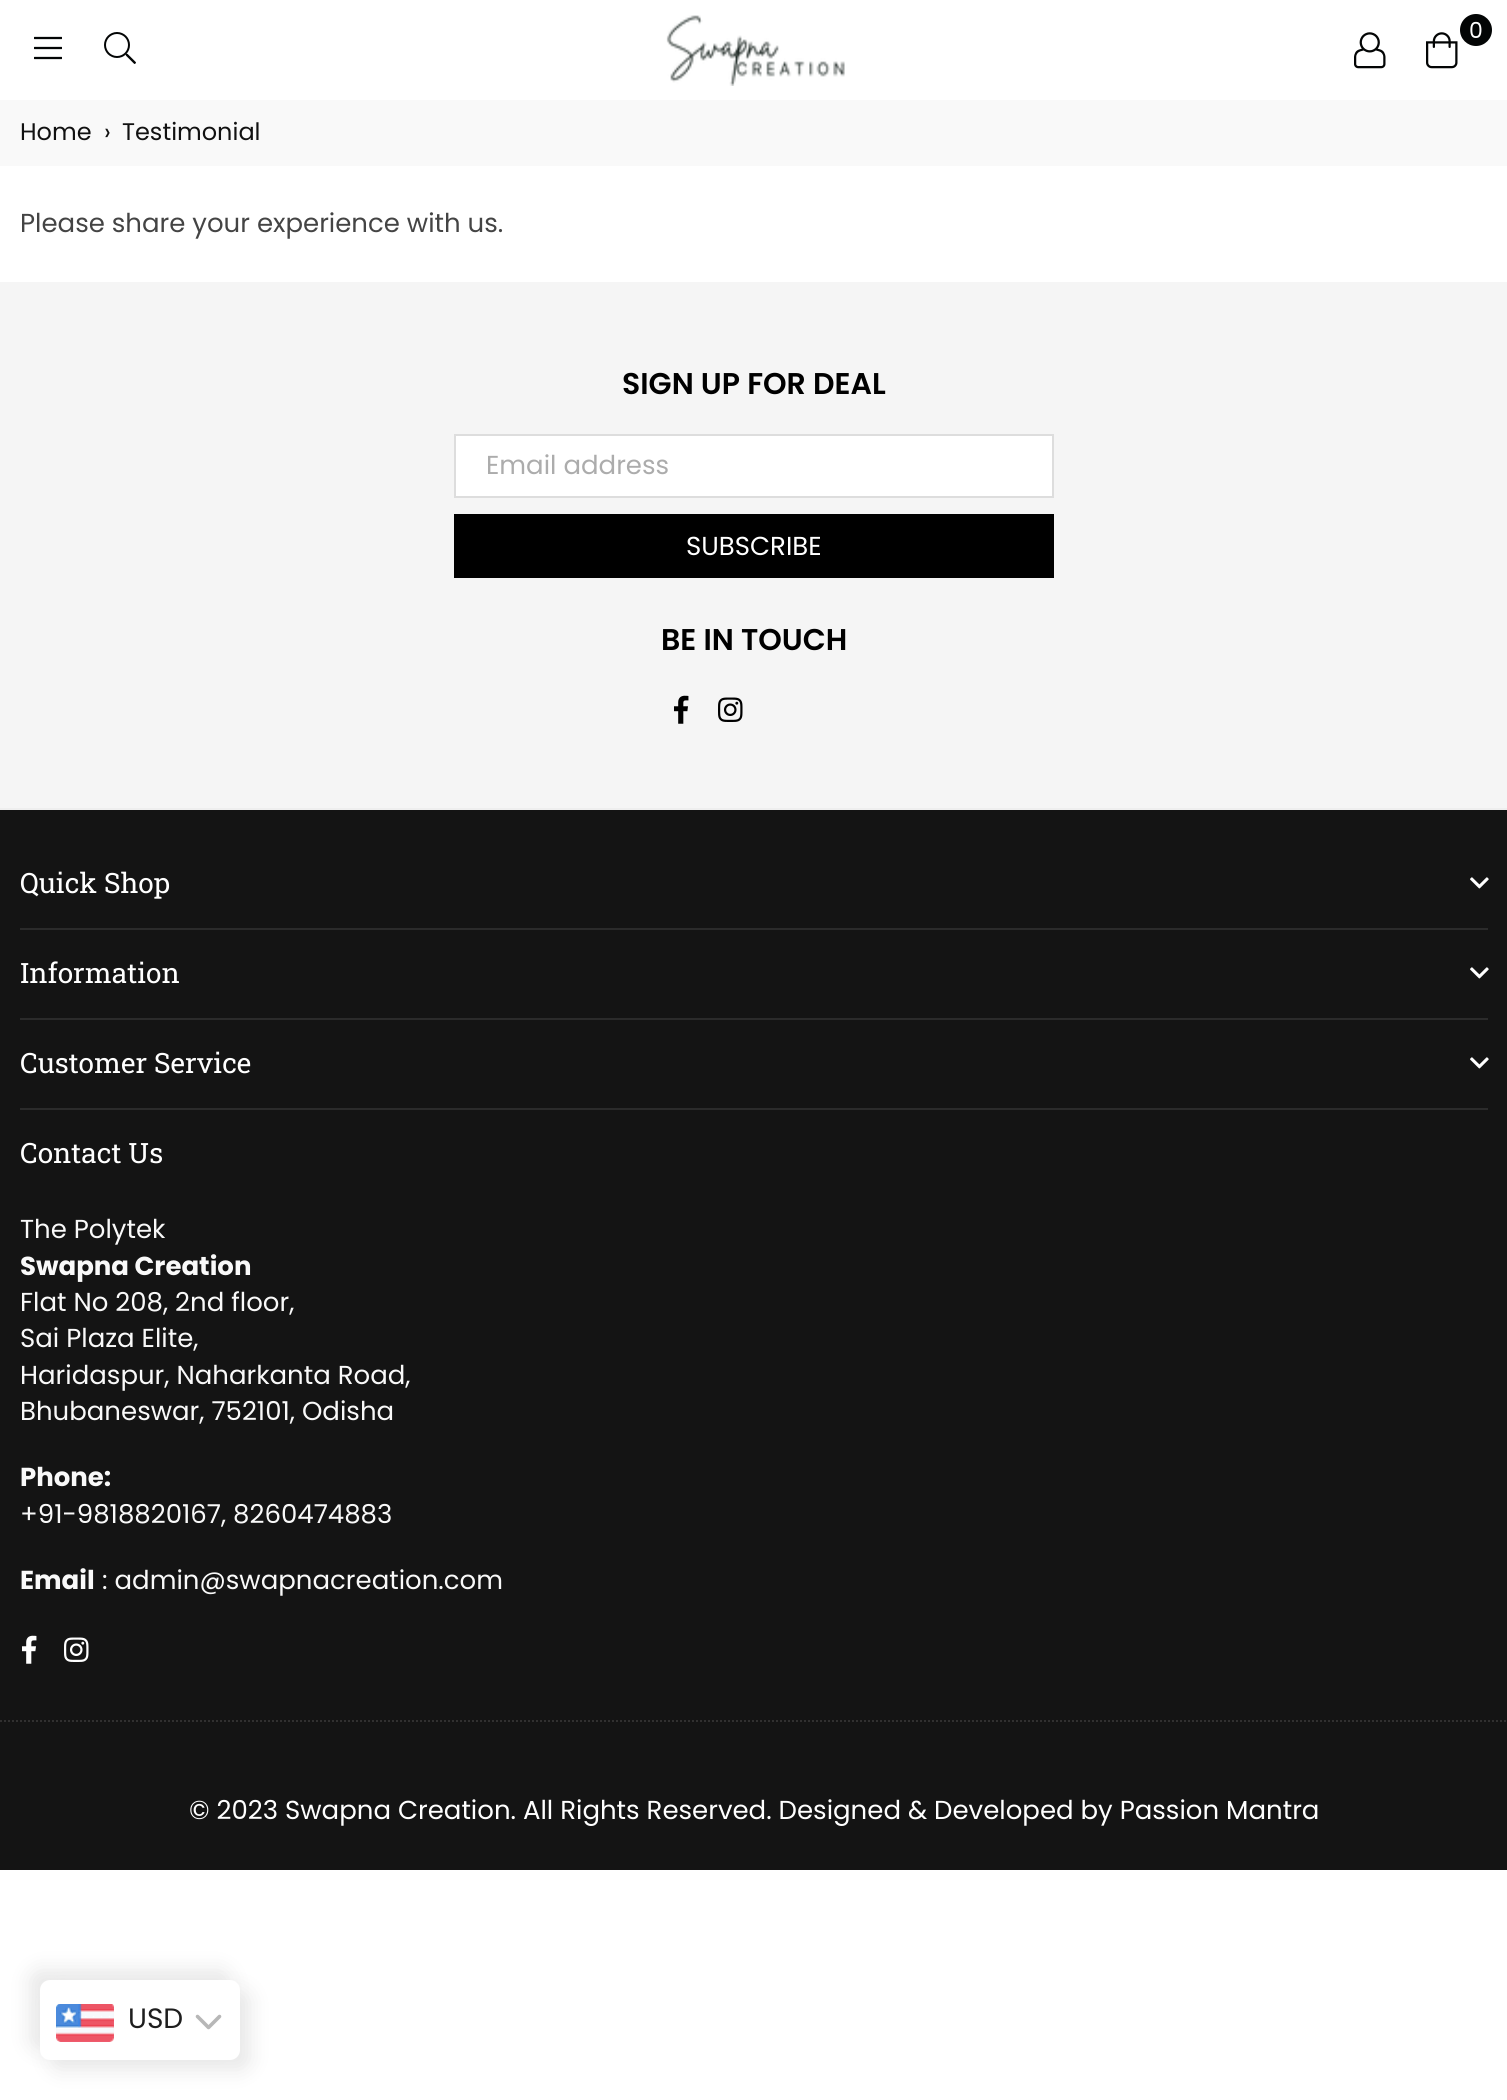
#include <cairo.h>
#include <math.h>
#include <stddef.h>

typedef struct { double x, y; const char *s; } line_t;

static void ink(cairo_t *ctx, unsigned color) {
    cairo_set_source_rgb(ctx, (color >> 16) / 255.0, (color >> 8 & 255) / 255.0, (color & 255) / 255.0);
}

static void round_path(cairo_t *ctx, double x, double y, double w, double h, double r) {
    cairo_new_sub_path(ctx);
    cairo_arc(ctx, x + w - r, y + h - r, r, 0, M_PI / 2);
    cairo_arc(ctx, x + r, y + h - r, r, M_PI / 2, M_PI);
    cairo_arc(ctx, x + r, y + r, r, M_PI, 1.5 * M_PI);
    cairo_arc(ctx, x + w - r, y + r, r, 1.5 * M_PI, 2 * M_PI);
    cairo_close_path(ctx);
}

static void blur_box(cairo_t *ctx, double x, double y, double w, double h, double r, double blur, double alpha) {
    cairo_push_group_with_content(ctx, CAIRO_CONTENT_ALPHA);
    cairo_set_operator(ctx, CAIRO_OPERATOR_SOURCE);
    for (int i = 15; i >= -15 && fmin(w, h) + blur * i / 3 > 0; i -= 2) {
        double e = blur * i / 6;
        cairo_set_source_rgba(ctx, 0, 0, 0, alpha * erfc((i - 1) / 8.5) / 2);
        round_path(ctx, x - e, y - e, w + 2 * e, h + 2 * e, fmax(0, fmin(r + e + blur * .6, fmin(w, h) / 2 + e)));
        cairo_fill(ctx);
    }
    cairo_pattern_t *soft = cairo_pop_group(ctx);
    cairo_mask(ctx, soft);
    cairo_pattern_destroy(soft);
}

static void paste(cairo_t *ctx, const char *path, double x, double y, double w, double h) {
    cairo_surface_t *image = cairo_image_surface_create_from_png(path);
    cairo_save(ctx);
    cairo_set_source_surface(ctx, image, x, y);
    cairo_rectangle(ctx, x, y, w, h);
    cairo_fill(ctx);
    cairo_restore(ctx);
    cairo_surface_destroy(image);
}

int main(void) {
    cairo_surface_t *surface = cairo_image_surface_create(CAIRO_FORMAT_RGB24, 1507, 2100);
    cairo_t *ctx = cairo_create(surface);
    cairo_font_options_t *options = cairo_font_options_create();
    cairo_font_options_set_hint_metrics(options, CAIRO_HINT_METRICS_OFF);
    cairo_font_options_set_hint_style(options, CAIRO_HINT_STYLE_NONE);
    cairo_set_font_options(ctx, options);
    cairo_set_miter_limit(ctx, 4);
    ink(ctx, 0xFFFFFF);
    cairo_paint(ctx);
    paste(ctx, "media/1.png", 666, 15, 179, 71);
    ink(ctx, 0x030505);
    cairo_arc(ctx, 1476, 30, 16, 0, 2 * M_PI);
    cairo_fill(ctx);
    cairo_select_font_face(ctx, "Poppins", CAIRO_FONT_SLANT_NORMAL, CAIRO_FONT_WEIGHT_NORMAL);
    cairo_set_font_size(ctx, 22);
    ink(ctx, 0xFFFFFF);
    cairo_move_to(ctx, 1469, 38);
    cairo_show_text(ctx, "0");
    paste(ctx, "media/2.png", 1426, 32, 32, 37);
    paste(ctx, "media/3.png", 1354, 32, 32, 37);
    paste(ctx, "media/4.png", 34, 36, 28, 24);
    paste(ctx, "media/5.png", 104, 32, 32, 32);
    ink(ctx, 0xF9F9F9);
    cairo_rectangle(ctx, 0, 100, 1507, 66);
    cairo_fill(ctx);
    cairo_set_font_size(ctx, 24);
    ink(ctx, 0x111111);
    {
        static const line_t items[] = {
            {20, 140, "Home"},
            {104, 140, "›"},
            {122, 140, "Testimonial"},
        };
        for (size_t i = 0; i < sizeof items / sizeof *items; i++) {
            cairo_move_to(ctx, items[i].x, items[i].y);
            cairo_show_text(ctx, items[i].s);
        }
    }
    cairo_set_font_size(ctx, 26);
    ink(ctx, 0x444444);
    cairo_move_to(ctx, 20, 232);
    cairo_show_text(ctx, "Please share your experience with us.");
    ink(ctx, 0xF5F5F5);
    cairo_rectangle(ctx, 0, 282, 1507, 526);
    cairo_fill(ctx);
    cairo_select_font_face(ctx, "Poppins SemiBold", CAIRO_FONT_SLANT_NORMAL, CAIRO_FONT_WEIGHT_NORMAL);
    cairo_set_font_size(ctx, 30);
    ink(ctx, 0x000000);
    cairo_move_to(ctx, 622, 394);
    cairo_show_text(ctx, "SIGN UP FOR DEAL");
    ink(ctx, 0xFFFFFF);
    cairo_rectangle(ctx, 455, 435, 598, 62);
    cairo_fill_preserve(ctx);
    ink(ctx, 0xDDDDDD);
    cairo_stroke(ctx);
    cairo_select_font_face(ctx, "Poppins", CAIRO_FONT_SLANT_NORMAL, CAIRO_FONT_WEIGHT_NORMAL);
    cairo_set_font_size(ctx, 26);
    ink(ctx, 0xACACAC);
    cairo_move_to(ctx, 486, 474);
    cairo_show_text(ctx, "Email address");
    ink(ctx, 0x000000);
    cairo_rectangle(ctx, 454, 514, 600, 64);
    cairo_fill(ctx);
    ink(ctx, 0xFFFFFF);
    cairo_move_to(ctx, 686, 555);
    cairo_show_text(ctx, "SUBSCRIBE");
    cairo_select_font_face(ctx, "Poppins SemiBold", CAIRO_FONT_SLANT_NORMAL, CAIRO_FONT_WEIGHT_NORMAL);
    cairo_set_font_size(ctx, 30);
    ink(ctx, 0x000000);
    cairo_move_to(ctx, 661, 650);
    cairo_show_text(ctx, "BE IN TOUCH");
    paste(ctx, "media/6.png", 674, 695, 15, 29);
    paste(ctx, "media/7.png", 718, 697, 25, 25);
    ink(ctx, 0x141414);
    cairo_rectangle(ctx, 0, 810, 1507, 1060);
    cairo_fill(ctx);
    ink(ctx, 0xEEEEEE);
    cairo_rectangle(ctx, 0, 808, 1507, 2);
    cairo_fill(ctx);
    cairo_select_font_face(ctx, "Roboto Slab", CAIRO_FONT_SLANT_NORMAL, CAIRO_FONT_WEIGHT_NORMAL);
    cairo_set_font_size(ctx, 28);
    ink(ctx, 0xFFFFFF);
    cairo_move_to(ctx, 20, 893);
    cairo_show_text(ctx, "Quick Shop");
    paste(ctx, "media/8.png", 1470, 877, 19, 12);
    ink(ctx, 0x2B2B2B);
    cairo_rectangle(ctx, 20, 928, 1468, 2);
    cairo_fill(ctx);
    ink(ctx, 0xFFFFFF);
    cairo_move_to(ctx, 20, 983);
    cairo_show_text(ctx, "Information");
    paste(ctx, "media/8.png", 1470, 967, 19, 12);
    ink(ctx, 0x2B2B2B);
    cairo_rectangle(ctx, 20, 1018, 1468, 2);
    cairo_fill(ctx);
    ink(ctx, 0xFFFFFF);
    cairo_move_to(ctx, 20, 1073);
    cairo_show_text(ctx, "Customer Service");
    paste(ctx, "media/8.png", 1470, 1057, 19, 12);
    ink(ctx, 0x2B2B2B);
    cairo_rectangle(ctx, 20, 1108, 1468, 2);
    cairo_fill(ctx);
    ink(ctx, 0xFFFFFF);
    cairo_move_to(ctx, 20, 1163);
    cairo_show_text(ctx, "Contact Us");
    cairo_select_font_face(ctx, "Poppins", CAIRO_FONT_SLANT_NORMAL, CAIRO_FONT_WEIGHT_NORMAL);
    cairo_set_font_size(ctx, 26);
    ink(ctx, 0xF9F9F9);
    cairo_move_to(ctx, 20, 1238);
    cairo_show_text(ctx, "The Polytek");
    cairo_select_font_face(ctx, "Poppins", CAIRO_FONT_SLANT_NORMAL, CAIRO_FONT_WEIGHT_BOLD);
    cairo_move_to(ctx, 20, 1275);
    cairo_show_text(ctx, "Swapna Creation");
    cairo_select_font_face(ctx, "Poppins", CAIRO_FONT_SLANT_NORMAL, CAIRO_FONT_WEIGHT_NORMAL);
    {
        static const line_t items[] = {
            {20, 1311, "Flat No 208, 2nd floor,"},
            {20, 1347, "Sai Plaza Elite,"},
            {20, 1384, "Haridaspur, Naharkanta Road,"},
            {20, 1420, "Bhubaneswar, 752101, Odisha"},
        };
        for (size_t i = 0; i < sizeof items / sizeof *items; i++) {
            cairo_move_to(ctx, items[i].x, items[i].y);
            cairo_show_text(ctx, items[i].s);
        }
    }
    cairo_select_font_face(ctx, "Poppins", CAIRO_FONT_SLANT_NORMAL, CAIRO_FONT_WEIGHT_BOLD);
    cairo_move_to(ctx, 20, 1486);
    cairo_show_text(ctx, "Phone:");
    cairo_select_font_face(ctx, "Poppins", CAIRO_FONT_SLANT_NORMAL, CAIRO_FONT_WEIGHT_NORMAL);
    cairo_move_to(ctx, 20, 1523);
    cairo_show_text(ctx, "+91-9818820167, 8260474883");
    cairo_select_font_face(ctx, "Poppins", CAIRO_FONT_SLANT_NORMAL, CAIRO_FONT_WEIGHT_BOLD);
    cairo_move_to(ctx, 20, 1589);
    cairo_show_text(ctx, "Email");
    cairo_select_font_face(ctx, "Poppins", CAIRO_FONT_SLANT_NORMAL, CAIRO_FONT_WEIGHT_NORMAL);
    cairo_move_to(ctx, 102, 1589);
    cairo_show_text(ctx, ": admin@swapnacreation.com");
    paste(ctx, "media/9.png", 22, 1635, 15, 29);
    paste(ctx, "media/10.png", 64, 1637, 25, 25);
    cairo_new_path(ctx);
    cairo_move_to(ctx, 0, 1721);
    cairo_line_to(ctx, 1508, 1721);
    ink(ctx, 0x313030);
    cairo_set_dash(ctx, (double[]){2, 2}, 2, 0);
    cairo_stroke(ctx);
    ink(ctx, 0xFFFFFF);
    cairo_move_to(ctx, 189, 1819);
    cairo_show_text(ctx, "© 2023 Swapna Creation. All Rights Reserved. Designed & Developed by Passion Mantra");
    ink(ctx, 0xE8E8E8);
    blur_box(ctx, 30, 1970, 200, 80, 10, 10, 1);
    blur_box(ctx, 50, 1990, 200, 80, 10, 10, 1);
    ink(ctx, 0xFFFFFF);
    round_path(ctx, 40, 1980, 200, 80, 10);
    cairo_fill(ctx);
    paste(ctx, "media/11.png", 56, 2004, 58, 38);
    cairo_set_font_size(ctx, 28);
    ink(ctx, 0x1E1E1E);
    cairo_move_to(ctx, 128, 2028);
    cairo_show_text(ctx, "USD");
    cairo_new_path(ctx);
    cairo_move_to(ctx, 197.5, 2016.5);
    cairo_line_to(ctx, 208.5, 2027.5);
    cairo_line_to(ctx, 219.5, 2016.5);
    ink(ctx, 0xB7B7B7);
    cairo_set_line_width(ctx, 3.6);
    cairo_set_line_cap(ctx, CAIRO_LINE_CAP_ROUND);
    cairo_set_line_join(ctx, CAIRO_LINE_JOIN_ROUND);
    cairo_set_dash(ctx, NULL, 0, 0);
    cairo_stroke(ctx);
    cairo_surface_write_to_png(surface, "image.png");
    cairo_font_options_destroy(options);
    cairo_destroy(ctx);
    cairo_surface_destroy(surface);
    return 0;
}
